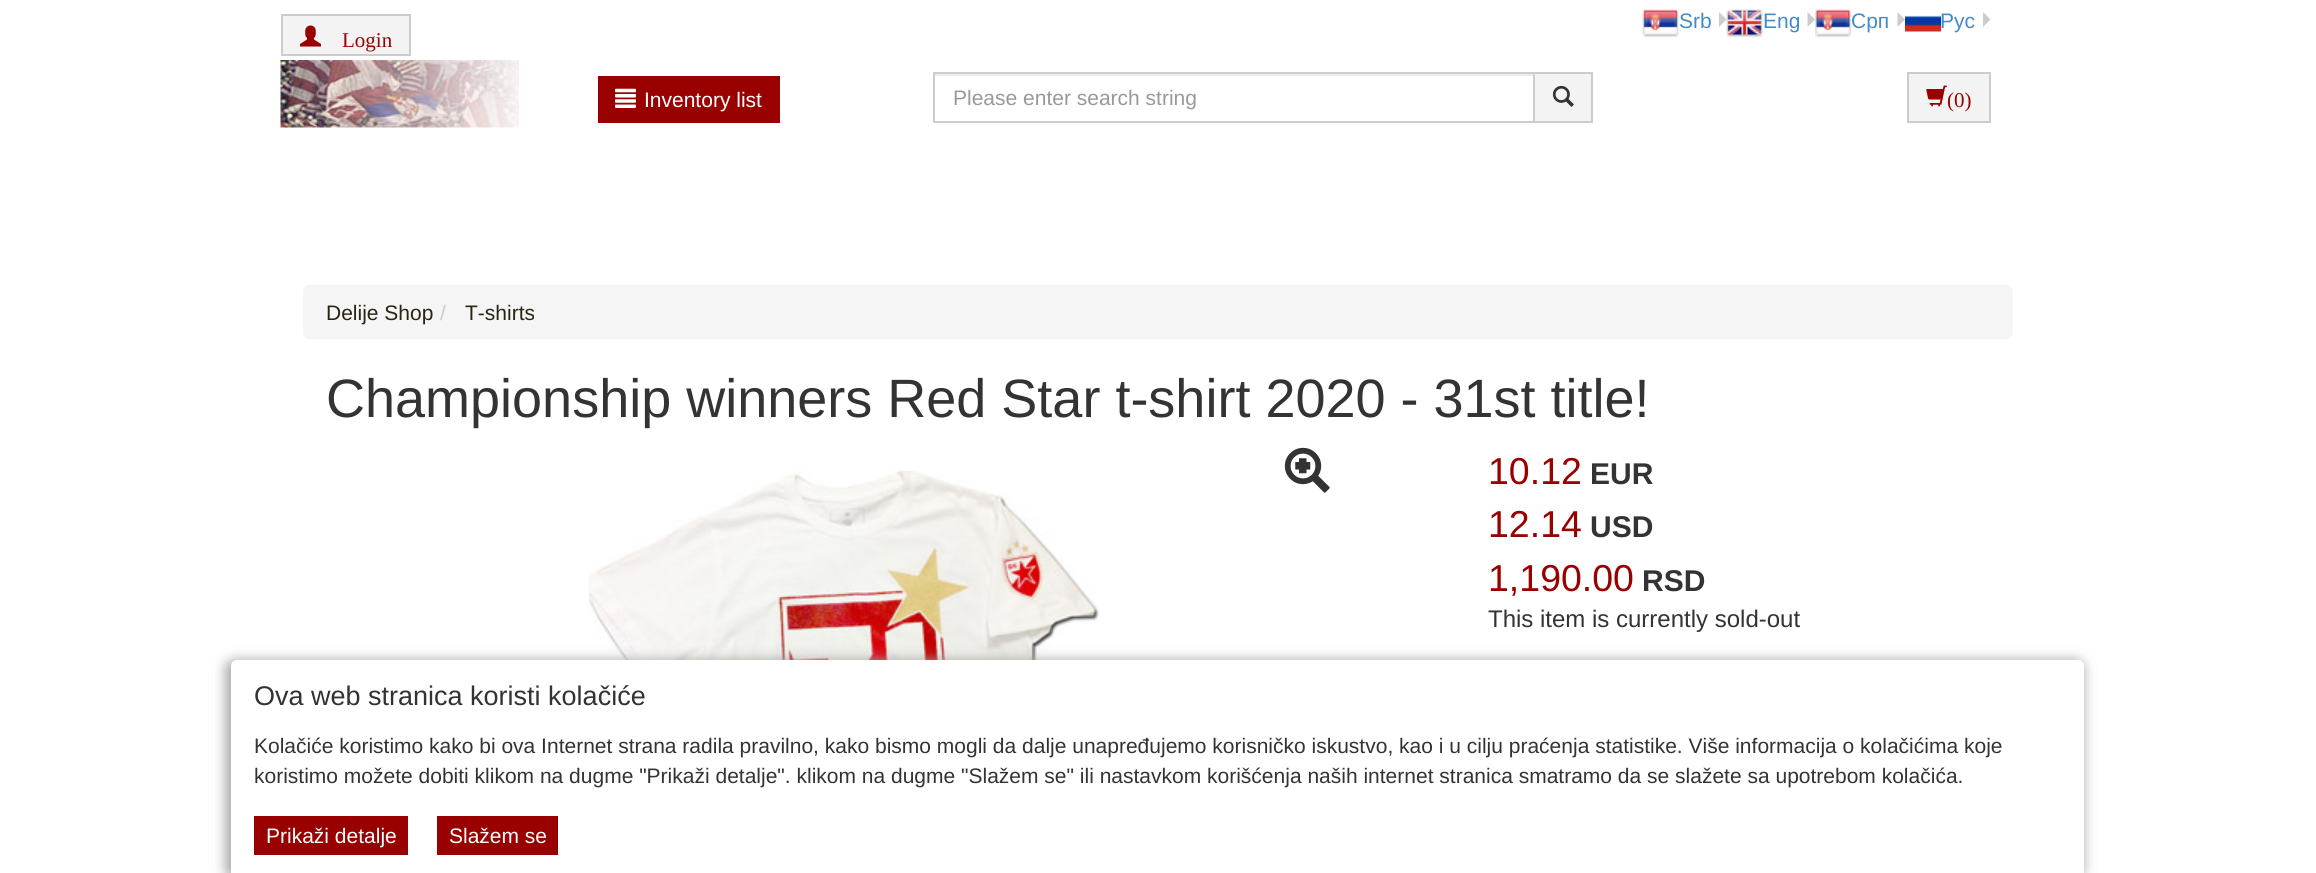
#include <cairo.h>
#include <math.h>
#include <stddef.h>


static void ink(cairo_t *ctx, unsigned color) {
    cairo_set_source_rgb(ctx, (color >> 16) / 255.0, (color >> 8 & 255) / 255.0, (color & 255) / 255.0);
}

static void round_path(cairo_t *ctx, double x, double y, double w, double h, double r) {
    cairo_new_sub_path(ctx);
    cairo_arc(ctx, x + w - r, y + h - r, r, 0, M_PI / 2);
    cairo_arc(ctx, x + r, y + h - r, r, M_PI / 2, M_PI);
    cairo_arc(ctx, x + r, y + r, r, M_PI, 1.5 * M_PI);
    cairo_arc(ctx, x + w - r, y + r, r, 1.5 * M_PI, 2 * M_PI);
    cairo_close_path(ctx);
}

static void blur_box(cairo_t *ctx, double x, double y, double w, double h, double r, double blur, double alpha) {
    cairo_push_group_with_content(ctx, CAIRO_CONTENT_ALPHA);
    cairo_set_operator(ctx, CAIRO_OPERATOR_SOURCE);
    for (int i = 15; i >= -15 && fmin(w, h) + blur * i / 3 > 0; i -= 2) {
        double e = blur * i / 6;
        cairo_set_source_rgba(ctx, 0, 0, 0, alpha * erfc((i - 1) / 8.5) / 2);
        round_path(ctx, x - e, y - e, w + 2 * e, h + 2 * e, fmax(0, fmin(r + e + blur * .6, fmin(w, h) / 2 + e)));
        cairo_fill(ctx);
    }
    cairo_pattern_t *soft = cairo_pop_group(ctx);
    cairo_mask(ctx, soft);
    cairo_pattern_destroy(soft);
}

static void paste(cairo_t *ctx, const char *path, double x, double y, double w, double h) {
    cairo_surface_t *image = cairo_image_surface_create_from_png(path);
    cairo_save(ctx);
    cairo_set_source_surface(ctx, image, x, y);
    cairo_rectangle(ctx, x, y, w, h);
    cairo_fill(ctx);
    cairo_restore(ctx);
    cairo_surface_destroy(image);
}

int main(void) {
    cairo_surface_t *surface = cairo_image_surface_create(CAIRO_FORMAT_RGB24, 2316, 873);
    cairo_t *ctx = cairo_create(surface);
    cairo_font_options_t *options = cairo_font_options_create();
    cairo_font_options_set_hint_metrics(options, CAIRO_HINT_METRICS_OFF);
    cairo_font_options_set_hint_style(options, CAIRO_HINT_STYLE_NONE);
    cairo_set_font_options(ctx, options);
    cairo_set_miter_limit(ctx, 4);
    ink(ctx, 0xFFFFFF);
    cairo_paint(ctx);
    paste(ctx, "media/1.png", 1642, 9, 37, 29);
    cairo_select_font_face(ctx, "Liberation Sans", CAIRO_FONT_SLANT_NORMAL, CAIRO_FONT_WEIGHT_NORMAL);
    cairo_set_font_size(ctx, 21);
    ink(ctx, 0x428BCA);
    cairo_move_to(ctx, 1679, 28);
    cairo_show_text(ctx, "Srb");
    ink(ctx, 0xCCCCCC);
    cairo_new_path(ctx);
    cairo_move_to(ctx, 1719, 27);
    cairo_line_to(ctx, 1719, 12);
    cairo_line_to(ctx, 1726.5, 19.5);
    cairo_close_path(ctx);
    cairo_fill(ctx);
    paste(ctx, "media/2.png", 1726, 9, 37, 29);
    ink(ctx, 0x428BCA);
    cairo_move_to(ctx, 1763, 28);
    cairo_show_text(ctx, "Eng");
    ink(ctx, 0xCCCCCC);
    cairo_new_path(ctx);
    cairo_move_to(ctx, 1807.5, 27);
    cairo_line_to(ctx, 1807.5, 12);
    cairo_line_to(ctx, 1815, 19.5);
    cairo_close_path(ctx);
    cairo_fill(ctx);
    paste(ctx, "media/3.png", 1815, 9, 36, 29);
    ink(ctx, 0x428BCA);
    cairo_move_to(ctx, 1851, 28);
    cairo_show_text(ctx, "Срп");
    ink(ctx, 0xCCCCCC);
    cairo_new_path(ctx);
    cairo_move_to(ctx, 1897.5, 27);
    cairo_line_to(ctx, 1897.5, 12);
    cairo_line_to(ctx, 1905, 19.5);
    cairo_close_path(ctx);
    cairo_fill(ctx);
    paste(ctx, "media/4.png", 1905, 15, 36, 17);
    ink(ctx, 0x428BCA);
    cairo_move_to(ctx, 1940, 28);
    cairo_show_text(ctx, "Рус");
    ink(ctx, 0xCCCCCC);
    cairo_new_path(ctx);
    cairo_move_to(ctx, 1983, 27);
    cairo_line_to(ctx, 1983, 12);
    cairo_line_to(ctx, 1990.5, 19.5);
    cairo_close_path(ctx);
    cairo_fill(ctx);
    ink(ctx, 0xF3F3F3);
    cairo_rectangle(ctx, 282, 15, 128, 40);
    cairo_fill_preserve(ctx);
    ink(ctx, 0xCCCCCC);
    cairo_stroke(ctx);
    paste(ctx, "media/5.png", 300, 25, 21, 22);
    cairo_select_font_face(ctx, "Liberation Serif", CAIRO_FONT_SLANT_NORMAL, CAIRO_FONT_WEIGHT_NORMAL);
    ink(ctx, 0x990000);
    cairo_move_to(ctx, 342, 47);
    cairo_show_text(ctx, "Login");
    paste(ctx, "media/6.png", 280, 60, 239, 68);
    cairo_rectangle(ctx, 598, 76, 182, 47);
    cairo_fill(ctx);
    paste(ctx, "media/7.png", 615, 88, 21, 20);
    cairo_select_font_face(ctx, "Liberation Sans", CAIRO_FONT_SLANT_NORMAL, CAIRO_FONT_WEIGHT_NORMAL);
    ink(ctx, 0xFFFFFF);
    cairo_move_to(ctx, 644, 107);
    cairo_show_text(ctx, "Inventory list");
    ink(ctx, 0xECECEC);
    cairo_rectangle(ctx, 935, 74, 598, 2);
    cairo_fill(ctx);
    ink(ctx, 0xF3F3F3);
    cairo_rectangle(ctx, 1534, 73, 58, 49);
    cairo_fill_preserve(ctx);
    ink(ctx, 0xCCCCCC);
    cairo_stroke(ctx);
    cairo_rectangle(ctx, 934, 73, 600, 49);
    cairo_stroke(ctx);
    ink(ctx, 0x999999);
    cairo_move_to(ctx, 953, 105);
    cairo_show_text(ctx, "Please enter search string");
    paste(ctx, "media/8.png", 1552, 85, 22, 22);
    ink(ctx, 0xF3F3F3);
    cairo_rectangle(ctx, 1908, 73, 82, 49);
    cairo_fill_preserve(ctx);
    ink(ctx, 0xCCCCCC);
    cairo_stroke(ctx);
    paste(ctx, "media/9.png", 1926, 85, 21, 22);
    cairo_select_font_face(ctx, "Liberation Serif", CAIRO_FONT_SLANT_NORMAL, CAIRO_FONT_WEIGHT_NORMAL);
    ink(ctx, 0x990000);
    cairo_move_to(ctx, 1947, 107);
    cairo_show_text(ctx, "(0)");
    ink(ctx, 0xF5F5F5);
    round_path(ctx, 303, 285, 1710, 54, 6);
    cairo_fill(ctx);
    cairo_select_font_face(ctx, "Liberation Sans", CAIRO_FONT_SLANT_NORMAL, CAIRO_FONT_WEIGHT_NORMAL);
    ink(ctx, 0x2A2415);
    cairo_move_to(ctx, 326, 320);
    cairo_show_text(ctx, "Delije Shop");
    ink(ctx, 0xCCCCCC);
    cairo_move_to(ctx, 440, 320);
    cairo_show_text(ctx, "/");
    ink(ctx, 0x2A2415);
    cairo_move_to(ctx, 465, 320);
    cairo_show_text(ctx, "T-shirts");
    cairo_set_font_size(ctx, 54);
    ink(ctx, 0x333333);
    cairo_move_to(ctx, 326, 417);
    cairo_show_text(ctx, "Championship winners Red Star t-shirt 2020 - 31st title!");
    paste(ctx, "media/10.png", 588, 470, 511, 190);
    paste(ctx, "media/11.png", 1284, 447, 46, 46);
    cairo_set_font_size(ctx, 37.5);
    ink(ctx, 0x990000);
    cairo_move_to(ctx, 1488, 484);
    cairo_show_text(ctx, "10.12");
    cairo_select_font_face(ctx, "Liberation Sans", CAIRO_FONT_SLANT_NORMAL, CAIRO_FONT_WEIGHT_BOLD);
    cairo_set_font_size(ctx, 30);
    ink(ctx, 0x333333);
    cairo_move_to(ctx, 1590, 484);
    cairo_show_text(ctx, "EUR");
    cairo_select_font_face(ctx, "Liberation Sans", CAIRO_FONT_SLANT_NORMAL, CAIRO_FONT_WEIGHT_NORMAL);
    cairo_set_font_size(ctx, 37.5);
    ink(ctx, 0x990000);
    cairo_move_to(ctx, 1488, 537);
    cairo_show_text(ctx, "12.14");
    cairo_select_font_face(ctx, "Liberation Sans", CAIRO_FONT_SLANT_NORMAL, CAIRO_FONT_WEIGHT_BOLD);
    cairo_set_font_size(ctx, 30);
    ink(ctx, 0x333333);
    cairo_move_to(ctx, 1590, 537);
    cairo_show_text(ctx, "USD");
    cairo_select_font_face(ctx, "Liberation Sans", CAIRO_FONT_SLANT_NORMAL, CAIRO_FONT_WEIGHT_NORMAL);
    cairo_set_font_size(ctx, 37.5);
    ink(ctx, 0x990000);
    cairo_move_to(ctx, 1488, 591);
    cairo_show_text(ctx, "1,190.00");
    cairo_select_font_face(ctx, "Liberation Sans", CAIRO_FONT_SLANT_NORMAL, CAIRO_FONT_WEIGHT_BOLD);
    cairo_set_font_size(ctx, 30);
    ink(ctx, 0x333333);
    cairo_move_to(ctx, 1642, 591);
    cairo_show_text(ctx, "RSD");
    cairo_select_font_face(ctx, "Liberation Sans", CAIRO_FONT_SLANT_NORMAL, CAIRO_FONT_WEIGHT_NORMAL);
    cairo_set_font_size(ctx, 24);
    cairo_move_to(ctx, 1488, 627);
    cairo_show_text(ctx, "This item is currently sold-out");
    ink(ctx, 0xA5A5A5);
    blur_box(ctx, 228, 663, 1853, 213, 6, 7, 0.8);
    blur_box(ctx, 228, 662, 1853, 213, 6, 7, 0.8);
    ink(ctx, 0xFFFFFF);
    cairo_new_path(ctx);
    cairo_move_to(ctx, 237, 660);
    cairo_line_to(ctx, 2078, 660);
    cairo_curve_to(ctx, 2081.5, 660, 2084, 662.5, 2084, 666);
    cairo_line_to(ctx, 2084, 873);
    cairo_line_to(ctx, 231, 873);
    cairo_line_to(ctx, 231, 666);
    cairo_curve_to(ctx, 231, 662.5, 233.5, 660, 237, 660);
    cairo_close_path(ctx);
    cairo_fill(ctx);
    cairo_set_font_size(ctx, 27);
    ink(ctx, 0x333333);
    cairo_move_to(ctx, 254, 705);
    cairo_show_text(ctx, "Ova web stranica koristi kolačiće");
    cairo_set_font_size(ctx, 21);
    cairo_move_to(ctx, 254, 753);
    cairo_show_text(ctx, "Kolačiće koristimo kako bi ova Internet strana radila pravilno, kako bismo mogli da dalje unapređujemo korisničko iskustvo, kao i u cilju praćenja statistike. Više informacija o kolačićima koje");
    cairo_move_to(ctx, 254, 783);
    cairo_show_text(ctx, "koristimo možete dobiti klikom na dugme \"Prikaži detalje\". klikom na dugme \"Slažem se\" ili nastavkom korišćenja naših internet stranica smatramo da se slažete sa upotrebom kolačića.");
    ink(ctx, 0x990000);
    cairo_rectangle(ctx, 254, 816, 154, 39);
    cairo_fill(ctx);
    ink(ctx, 0xFFFFFF);
    cairo_move_to(ctx, 266, 843);
    cairo_show_text(ctx, "Prikaži detalje");
    ink(ctx, 0x990000);
    cairo_rectangle(ctx, 437, 816, 121, 39);
    cairo_fill(ctx);
    ink(ctx, 0xFFFFFF);
    cairo_move_to(ctx, 449, 843);
    cairo_show_text(ctx, "Slažem se");
    cairo_surface_write_to_png(surface, "image.png");
    cairo_font_options_destroy(options);
    cairo_destroy(ctx);
    cairo_surface_destroy(surface);
    return 0;
}
